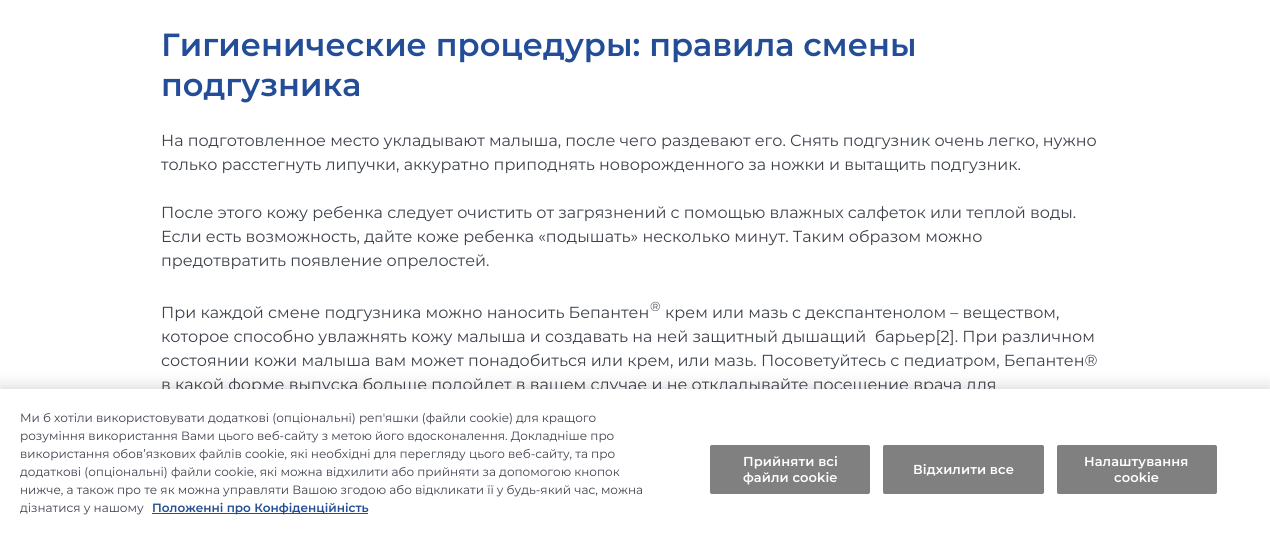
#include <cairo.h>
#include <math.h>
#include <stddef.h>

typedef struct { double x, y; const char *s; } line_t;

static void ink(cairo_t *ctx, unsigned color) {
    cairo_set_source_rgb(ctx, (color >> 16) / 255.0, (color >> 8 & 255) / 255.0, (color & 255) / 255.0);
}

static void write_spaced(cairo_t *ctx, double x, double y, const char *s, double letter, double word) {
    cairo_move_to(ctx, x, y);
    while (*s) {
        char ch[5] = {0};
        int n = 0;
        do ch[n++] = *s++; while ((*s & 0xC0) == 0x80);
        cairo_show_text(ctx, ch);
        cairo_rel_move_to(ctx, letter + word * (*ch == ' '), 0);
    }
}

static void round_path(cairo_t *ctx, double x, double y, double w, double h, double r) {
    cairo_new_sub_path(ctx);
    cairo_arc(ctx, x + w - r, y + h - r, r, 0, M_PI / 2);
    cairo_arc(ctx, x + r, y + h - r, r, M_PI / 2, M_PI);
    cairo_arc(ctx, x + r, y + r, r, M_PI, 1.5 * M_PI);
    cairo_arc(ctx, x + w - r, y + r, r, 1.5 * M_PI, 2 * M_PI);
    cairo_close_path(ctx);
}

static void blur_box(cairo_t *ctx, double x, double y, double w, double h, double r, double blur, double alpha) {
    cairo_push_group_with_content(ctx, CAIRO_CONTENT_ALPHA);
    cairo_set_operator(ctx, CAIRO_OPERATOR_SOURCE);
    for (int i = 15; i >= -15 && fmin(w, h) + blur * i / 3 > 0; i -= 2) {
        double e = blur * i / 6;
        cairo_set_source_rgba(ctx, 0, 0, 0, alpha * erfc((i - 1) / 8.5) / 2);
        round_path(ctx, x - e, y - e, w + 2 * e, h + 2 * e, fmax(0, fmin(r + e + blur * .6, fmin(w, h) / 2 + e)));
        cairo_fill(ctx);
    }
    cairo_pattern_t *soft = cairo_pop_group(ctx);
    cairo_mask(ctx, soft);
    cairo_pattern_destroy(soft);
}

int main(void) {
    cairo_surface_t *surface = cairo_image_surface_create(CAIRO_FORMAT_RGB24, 1270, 537);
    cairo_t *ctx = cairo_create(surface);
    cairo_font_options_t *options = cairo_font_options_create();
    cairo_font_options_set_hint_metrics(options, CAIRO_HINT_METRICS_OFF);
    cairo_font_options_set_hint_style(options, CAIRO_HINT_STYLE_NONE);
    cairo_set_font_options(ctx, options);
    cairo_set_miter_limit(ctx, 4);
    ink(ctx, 0xFFFFFF);
    cairo_paint(ctx);
    cairo_select_font_face(ctx, "Montserrat SemiBold", CAIRO_FONT_SLANT_NORMAL, CAIRO_FONT_WEIGHT_NORMAL);
    cairo_set_font_size(ctx, 32);
    ink(ctx, 0x234D96);
    cairo_move_to(ctx, 161, 56);
    cairo_show_text(ctx, "Гигиенические процедуры: правила смены");
    cairo_move_to(ctx, 161, 96);
    cairo_show_text(ctx, "подгузника");
    cairo_select_font_face(ctx, "Montserrat", CAIRO_FONT_SLANT_NORMAL, CAIRO_FONT_WEIGHT_NORMAL);
    cairo_set_font_size(ctx, 16);
    ink(ctx, 0x3C414B);
    {
        static const line_t items[] = {
            {161, 146, "На подготовленное место укладывают малыша, после чего раздевают его. Снять подгузник очень легко, нужно"},
            {161, 170, "только расстегнуть липучки, аккуратно приподнять новорожденного за ножки и вытащить подгузник."},
            {161, 218, "После этого кожу ребенка следует очистить от загрязнений с помощью влажных салфеток или теплой воды."},
            {161, 242, "Если есть возможность, дайте коже ребенка «подышать» несколько минут. Таким образом можно"},
            {161, 266, "предотвратить появление опрелостей."},
            {161, 318, "При каждой смене подгузника можно наносить Бепантен"},
        };
        for (size_t i = 0; i < sizeof items / sizeof *items; i++) {
            cairo_move_to(ctx, items[i].x, items[i].y);
            cairo_show_text(ctx, items[i].s);
        }
    }
    cairo_set_font_size(ctx, 13);
    cairo_move_to(ctx, 650, 311);
    cairo_show_text(ctx, "®");
    cairo_set_font_size(ctx, 16);
    {
        static const line_t items[] = {
            {665, 318, "крем или мазь с декспантенолом – веществом,"},
            {161, 342, "которое способно увлажнять кожу малыша и создавать на ней защитный дышащий  барьер[2]. При различном"},
            {161, 366, "состоянии кожи малыша вам может понадобиться или крем, или мазь. Посоветуйтесь с педиатром, Бепантен®"},
            {161, 390, "в какой форме выпуска больше подойдет в вашем случае и не откладывайте посещение врача для"},
        };
        for (size_t i = 0; i < sizeof items / sizeof *items; i++) {
            cairo_move_to(ctx, items[i].x, items[i].y);
            cairo_show_text(ctx, items[i].s);
        }
    }
    ink(ctx, 0x000000);
    blur_box(ctx, 0, 389, 1270, 148, 0, 9, 0.2);
    ink(ctx, 0xFFFFFF);
    cairo_rectangle(ctx, 0, 389, 1270, 148);
    cairo_fill(ctx);
    cairo_set_font_size(ctx, 12);
    ink(ctx, 0x3C414B);
    {
        static const line_t items[] = {
            {20, 422, "Ми б хотіли використовувати додаткові (опціональні) реп'яшки (файли cookie) для кращого"},
            {20, 440, "розуміння використання Вами цього веб-сайту з метою його вдосконалення. Докладніше про"},
            {20, 458, "використання обов’язкових файлів cookie, які необхідні для перегляду цього веб-сайту, та про"},
            {20, 476, "додаткові (опціональні) файли cookie, які можна відхилити або прийняти за допомогою кнопок"},
            {20, 494, "нижче, а також про те як можна управляти Вашою згодою або відкликати її у будь-який час, можна"},
            {20, 512, "дізнатися у нашому"},
        };
        for (size_t i = 0; i < sizeof items / sizeof *items; i++) {
            cairo_move_to(ctx, items[i].x, items[i].y);
            cairo_show_text(ctx, items[i].s);
        }
    }
    ink(ctx, 0x234D96);
    cairo_rectangle(ctx, 152, 513, 216, 1);
    cairo_fill(ctx);
    cairo_select_font_face(ctx, "Montserrat SemiBold", CAIRO_FONT_SLANT_NORMAL, CAIRO_FONT_WEIGHT_NORMAL);
    cairo_move_to(ctx, 152, 512);
    cairo_show_text(ctx, "Положенні про Конфіденційність");
    ink(ctx, 0x808080);
    round_path(ctx, 710.5, 445.5, 159, 48, 1.5);
    cairo_fill_preserve(ctx);
    cairo_set_line_width(ctx, 1);
    cairo_stroke(ctx);
    cairo_set_font_size(ctx, 13);
    ink(ctx, 0xFFFFFF);
    write_spaced(ctx, 743, 466, "Прийняти всі", 0.1, 0);
    write_spaced(ctx, 743, 482, "файли сookie", 0.1, 0);
    ink(ctx, 0x808080);
    round_path(ctx, 883.5, 445.5, 160, 48, 1.5);
    cairo_fill_preserve(ctx);
    cairo_stroke(ctx);
    ink(ctx, 0xFFFFFF);
    write_spaced(ctx, 913, 474, "Відхилити все", 0.1, 0);
    ink(ctx, 0x808080);
    round_path(ctx, 1057.5, 445.5, 159, 48, 1.5);
    cairo_fill_preserve(ctx);
    cairo_stroke(ctx);
    ink(ctx, 0xFFFFFF);
    write_spaced(ctx, 1084, 466, "Налаштування", 0.1, 0);
    write_spaced(ctx, 1114, 482, "cookie", 0.1, 0);
    cairo_surface_write_to_png(surface, "image.png");
    cairo_font_options_destroy(options);
    cairo_destroy(ctx);
    cairo_surface_destroy(surface);
    return 0;
}
